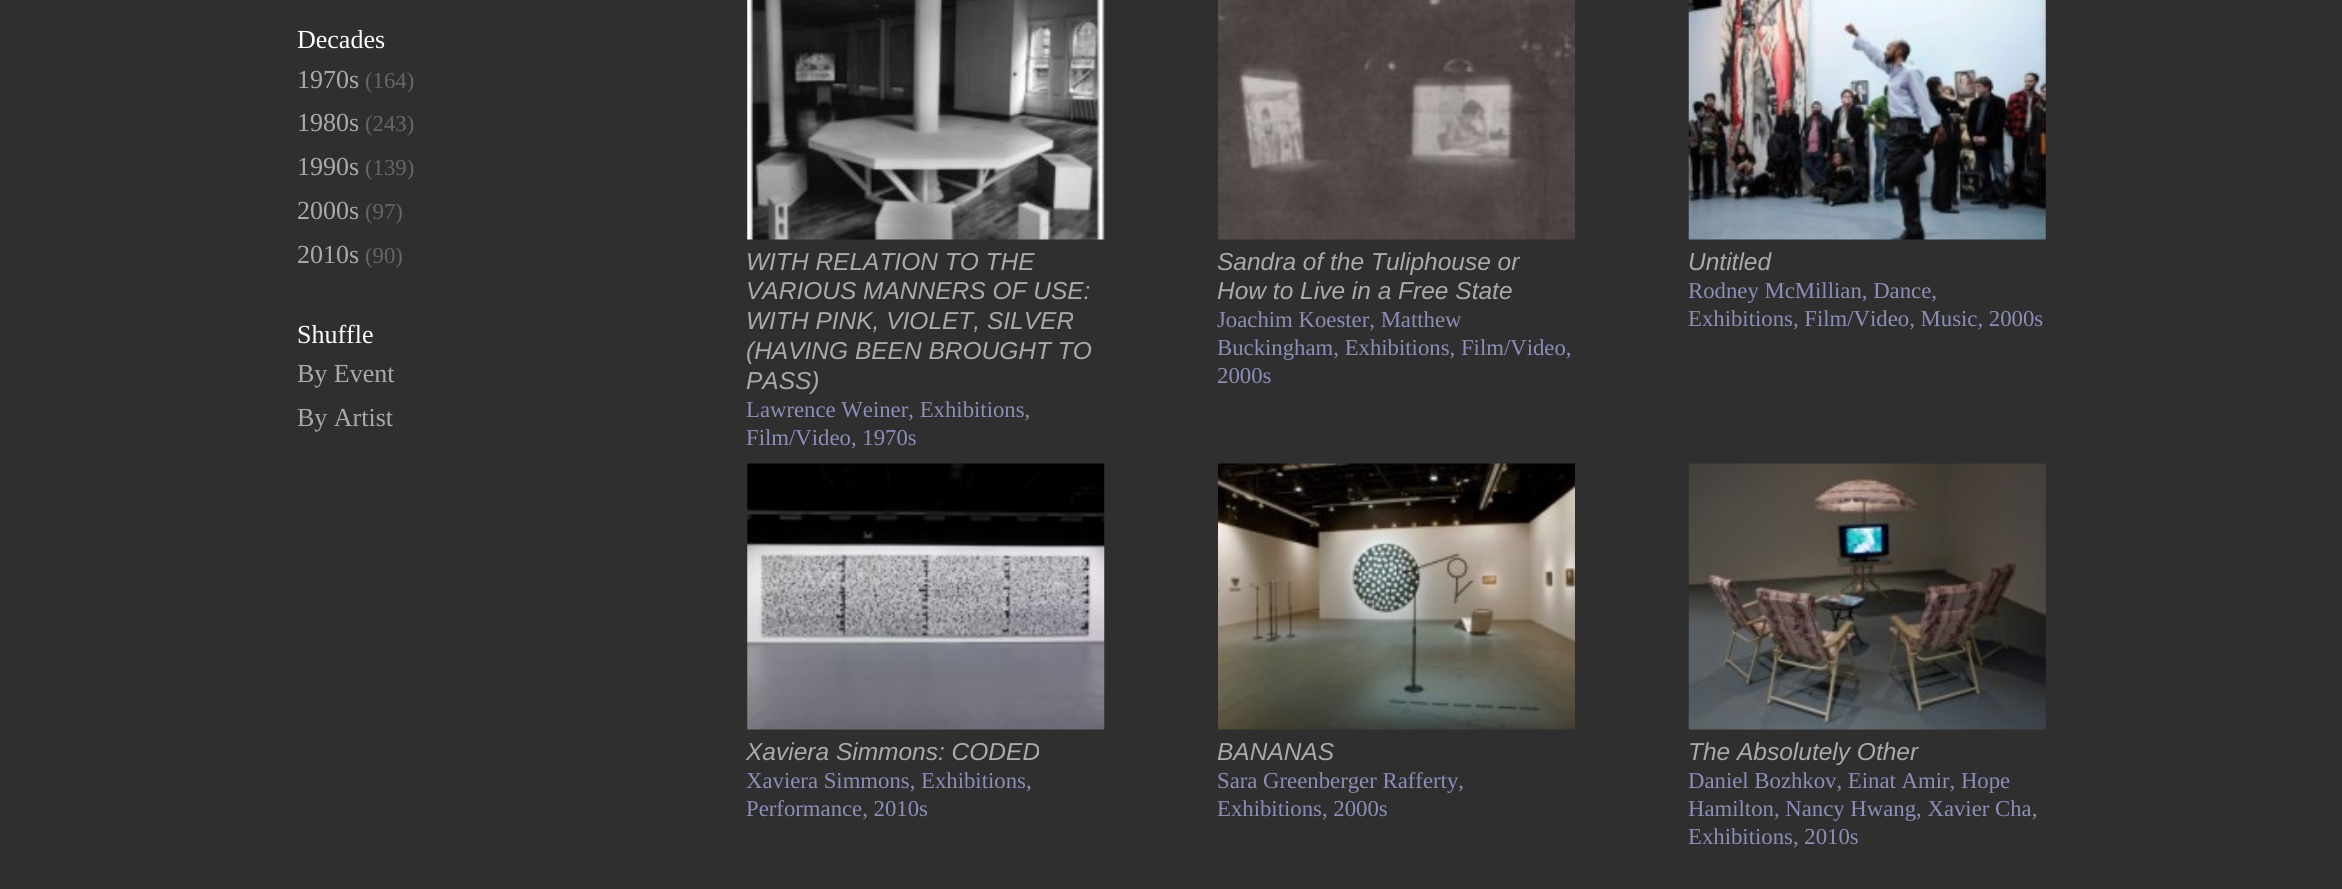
#include <cairo.h>
#include <math.h>
#include <stddef.h>

typedef struct { double x, y; const char *s; } line_t;

static void ink(cairo_t *ctx, unsigned color) {
    cairo_set_source_rgb(ctx, (color >> 16) / 255.0, (color >> 8 & 255) / 255.0, (color & 255) / 255.0);
}

static void paste(cairo_t *ctx, const char *path, double x, double y, double w, double h) {
    cairo_surface_t *image = cairo_image_surface_create_from_png(path);
    cairo_save(ctx);
    cairo_set_source_surface(ctx, image, x, y);
    cairo_rectangle(ctx, x, y, w, h);
    cairo_fill(ctx);
    cairo_restore(ctx);
    cairo_surface_destroy(image);
}

int main(void) {
    cairo_surface_t *surface = cairo_image_surface_create(CAIRO_FORMAT_RGB24, 2342, 889);
    cairo_t *ctx = cairo_create(surface);
    cairo_font_options_t *options = cairo_font_options_create();
    cairo_font_options_set_hint_metrics(options, CAIRO_HINT_METRICS_OFF);
    cairo_font_options_set_hint_style(options, CAIRO_HINT_STYLE_NONE);
    cairo_set_font_options(ctx, options);
    cairo_set_miter_limit(ctx, 4);
    ink(ctx, 0x2F2F2F);
    cairo_paint(ctx);
    cairo_select_font_face(ctx, "Liberation Serif", CAIRO_FONT_SLANT_NORMAL, CAIRO_FONT_WEIGHT_NORMAL);
    cairo_set_font_size(ctx, 26);
    ink(ctx, 0xFFFFFF);
    cairo_move_to(ctx, 297, 48);
    cairo_show_text(ctx, "Decades");
    ink(ctx, 0xAAAAAA);
    cairo_move_to(ctx, 297, 88);
    cairo_show_text(ctx, "1970s");
    cairo_set_font_size(ctx, 22.75);
    ink(ctx, 0x666666);
    cairo_move_to(ctx, 365, 88);
    cairo_show_text(ctx, "(164)");
    cairo_set_font_size(ctx, 26);
    ink(ctx, 0xAAAAAA);
    cairo_move_to(ctx, 297, 131);
    cairo_show_text(ctx, "1980s");
    cairo_set_font_size(ctx, 22.75);
    ink(ctx, 0x666666);
    cairo_move_to(ctx, 365, 131);
    cairo_show_text(ctx, "(243)");
    cairo_set_font_size(ctx, 26);
    ink(ctx, 0xAAAAAA);
    cairo_move_to(ctx, 297, 175);
    cairo_show_text(ctx, "1990s");
    cairo_set_font_size(ctx, 22.75);
    ink(ctx, 0x666666);
    cairo_move_to(ctx, 365, 175);
    cairo_show_text(ctx, "(139)");
    cairo_set_font_size(ctx, 26);
    ink(ctx, 0xAAAAAA);
    cairo_move_to(ctx, 297, 219);
    cairo_show_text(ctx, "2000s");
    cairo_set_font_size(ctx, 22.75);
    ink(ctx, 0x666666);
    cairo_move_to(ctx, 365, 219);
    cairo_show_text(ctx, "(97)");
    cairo_set_font_size(ctx, 26);
    ink(ctx, 0xAAAAAA);
    cairo_move_to(ctx, 297, 263);
    cairo_show_text(ctx, "2010s");
    cairo_set_font_size(ctx, 22.75);
    ink(ctx, 0x666666);
    cairo_move_to(ctx, 365, 263);
    cairo_show_text(ctx, "(90)");
    cairo_set_font_size(ctx, 26);
    ink(ctx, 0xFFFFFF);
    cairo_move_to(ctx, 297, 343);
    cairo_show_text(ctx, "Shuffle");
    ink(ctx, 0xAAAAAA);
    cairo_move_to(ctx, 297, 382);
    cairo_show_text(ctx, "By Event");
    cairo_move_to(ctx, 297, 426);
    cairo_show_text(ctx, "By Artist");
    paste(ctx, "media/1.png", 747, 0, 358, 240);
    cairo_select_font_face(ctx, "Liberation Sans", CAIRO_FONT_SLANT_ITALIC, CAIRO_FONT_WEIGHT_NORMAL);
    cairo_set_font_size(ctx, 24.5);
    {
        static const line_t items[] = {
            {746, 270, "WITH RELATION TO THE"},
            {746, 299, "VARIOUS MANNERS OF USE:"},
            {746, 329, "WITH PINK, VIOLET, SILVER"},
            {746, 359, "(HAVING BEEN BROUGHT TO"},
            {746, 389, "PASS)"},
        };
        for (size_t i = 0; i < sizeof items / sizeof *items; i++) {
            cairo_move_to(ctx, items[i].x, items[i].y);
            cairo_show_text(ctx, items[i].s);
        }
    }
    cairo_select_font_face(ctx, "Liberation Serif", CAIRO_FONT_SLANT_NORMAL, CAIRO_FONT_WEIGHT_NORMAL);
    cairo_set_font_size(ctx, 22.75);
    ink(ctx, 0x8C8EB7);
    cairo_move_to(ctx, 746, 417);
    cairo_show_text(ctx, "Lawrence Weiner, Exhibitions,");
    cairo_move_to(ctx, 746, 445);
    cairo_show_text(ctx, "Film/Video, 1970s");
    paste(ctx, "media/2.png", 1218, 0, 357, 240);
    cairo_select_font_face(ctx, "Liberation Sans", CAIRO_FONT_SLANT_ITALIC, CAIRO_FONT_WEIGHT_NORMAL);
    cairo_set_font_size(ctx, 24.5);
    ink(ctx, 0xAAAAAA);
    cairo_move_to(ctx, 1217, 270);
    cairo_show_text(ctx, "Sandra of the Tuliphouse or");
    cairo_move_to(ctx, 1217, 299);
    cairo_show_text(ctx, "How to Live in a Free State");
    cairo_select_font_face(ctx, "Liberation Serif", CAIRO_FONT_SLANT_NORMAL, CAIRO_FONT_WEIGHT_NORMAL);
    cairo_set_font_size(ctx, 22.75);
    ink(ctx, 0x8C8EB7);
    {
        static const line_t items[] = {
            {1217, 327, "Joachim Koester, Matthew"},
            {1217, 355, "Buckingham, Exhibitions, Film/Video,"},
            {1217, 383, "2000s"},
        };
        for (size_t i = 0; i < sizeof items / sizeof *items; i++) {
            cairo_move_to(ctx, items[i].x, items[i].y);
            cairo_show_text(ctx, items[i].s);
        }
    }
    paste(ctx, "media/3.png", 1688, 0, 358, 240);
    cairo_select_font_face(ctx, "Liberation Sans", CAIRO_FONT_SLANT_ITALIC, CAIRO_FONT_WEIGHT_NORMAL);
    cairo_set_font_size(ctx, 24.5);
    ink(ctx, 0xAAAAAA);
    cairo_move_to(ctx, 1688, 270);
    cairo_show_text(ctx, "Untitled");
    cairo_select_font_face(ctx, "Liberation Serif", CAIRO_FONT_SLANT_NORMAL, CAIRO_FONT_WEIGHT_NORMAL);
    cairo_set_font_size(ctx, 22.75);
    ink(ctx, 0x8C8EB7);
    cairo_move_to(ctx, 1688, 298);
    cairo_show_text(ctx, "Rodney McMillian, Dance,");
    cairo_move_to(ctx, 1688, 326);
    cairo_show_text(ctx, "Exhibitions, Film/Video, Music, 2000s");
    paste(ctx, "media/4.png", 747, 463, 358, 267);
    cairo_select_font_face(ctx, "Liberation Sans", CAIRO_FONT_SLANT_ITALIC, CAIRO_FONT_WEIGHT_NORMAL);
    cairo_set_font_size(ctx, 24.5);
    ink(ctx, 0xAAAAAA);
    cairo_move_to(ctx, 746, 760);
    cairo_show_text(ctx, "Xaviera Simmons: CODED");
    cairo_select_font_face(ctx, "Liberation Serif", CAIRO_FONT_SLANT_NORMAL, CAIRO_FONT_WEIGHT_NORMAL);
    cairo_set_font_size(ctx, 22.75);
    ink(ctx, 0x8C8EB7);
    cairo_move_to(ctx, 746, 788);
    cairo_show_text(ctx, "Xaviera Simmons, Exhibitions,");
    cairo_move_to(ctx, 746, 816);
    cairo_show_text(ctx, "Performance, 2010s");
    paste(ctx, "media/5.png", 1218, 463, 357, 267);
    cairo_select_font_face(ctx, "Liberation Sans", CAIRO_FONT_SLANT_ITALIC, CAIRO_FONT_WEIGHT_NORMAL);
    cairo_set_font_size(ctx, 24.5);
    ink(ctx, 0xAAAAAA);
    cairo_move_to(ctx, 1217, 760);
    cairo_show_text(ctx, "BANANAS");
    cairo_select_font_face(ctx, "Liberation Serif", CAIRO_FONT_SLANT_NORMAL, CAIRO_FONT_WEIGHT_NORMAL);
    cairo_set_font_size(ctx, 22.75);
    ink(ctx, 0x8C8EB7);
    cairo_move_to(ctx, 1217, 788);
    cairo_show_text(ctx, "Sara Greenberger Rafferty,");
    cairo_move_to(ctx, 1217, 816);
    cairo_show_text(ctx, "Exhibitions, 2000s");
    paste(ctx, "media/6.png", 1688, 463, 358, 267);
    cairo_select_font_face(ctx, "Liberation Sans", CAIRO_FONT_SLANT_ITALIC, CAIRO_FONT_WEIGHT_NORMAL);
    cairo_set_font_size(ctx, 24.5);
    ink(ctx, 0xAAAAAA);
    cairo_move_to(ctx, 1688, 760);
    cairo_show_text(ctx, "The Absolutely Other");
    cairo_select_font_face(ctx, "Liberation Serif", CAIRO_FONT_SLANT_NORMAL, CAIRO_FONT_WEIGHT_NORMAL);
    cairo_set_font_size(ctx, 22.75);
    ink(ctx, 0x8C8EB7);
    {
        static const line_t items[] = {
            {1688, 788, "Daniel Bozhkov, Einat Amir, Hope"},
            {1688, 816, "Hamilton, Nancy Hwang, Xavier Cha,"},
            {1688, 844, "Exhibitions, 2010s"},
        };
        for (size_t i = 0; i < sizeof items / sizeof *items; i++) {
            cairo_move_to(ctx, items[i].x, items[i].y);
            cairo_show_text(ctx, items[i].s);
        }
    }
    cairo_surface_write_to_png(surface, "image.png");
    cairo_font_options_destroy(options);
    cairo_destroy(ctx);
    cairo_surface_destroy(surface);
    return 0;
}
